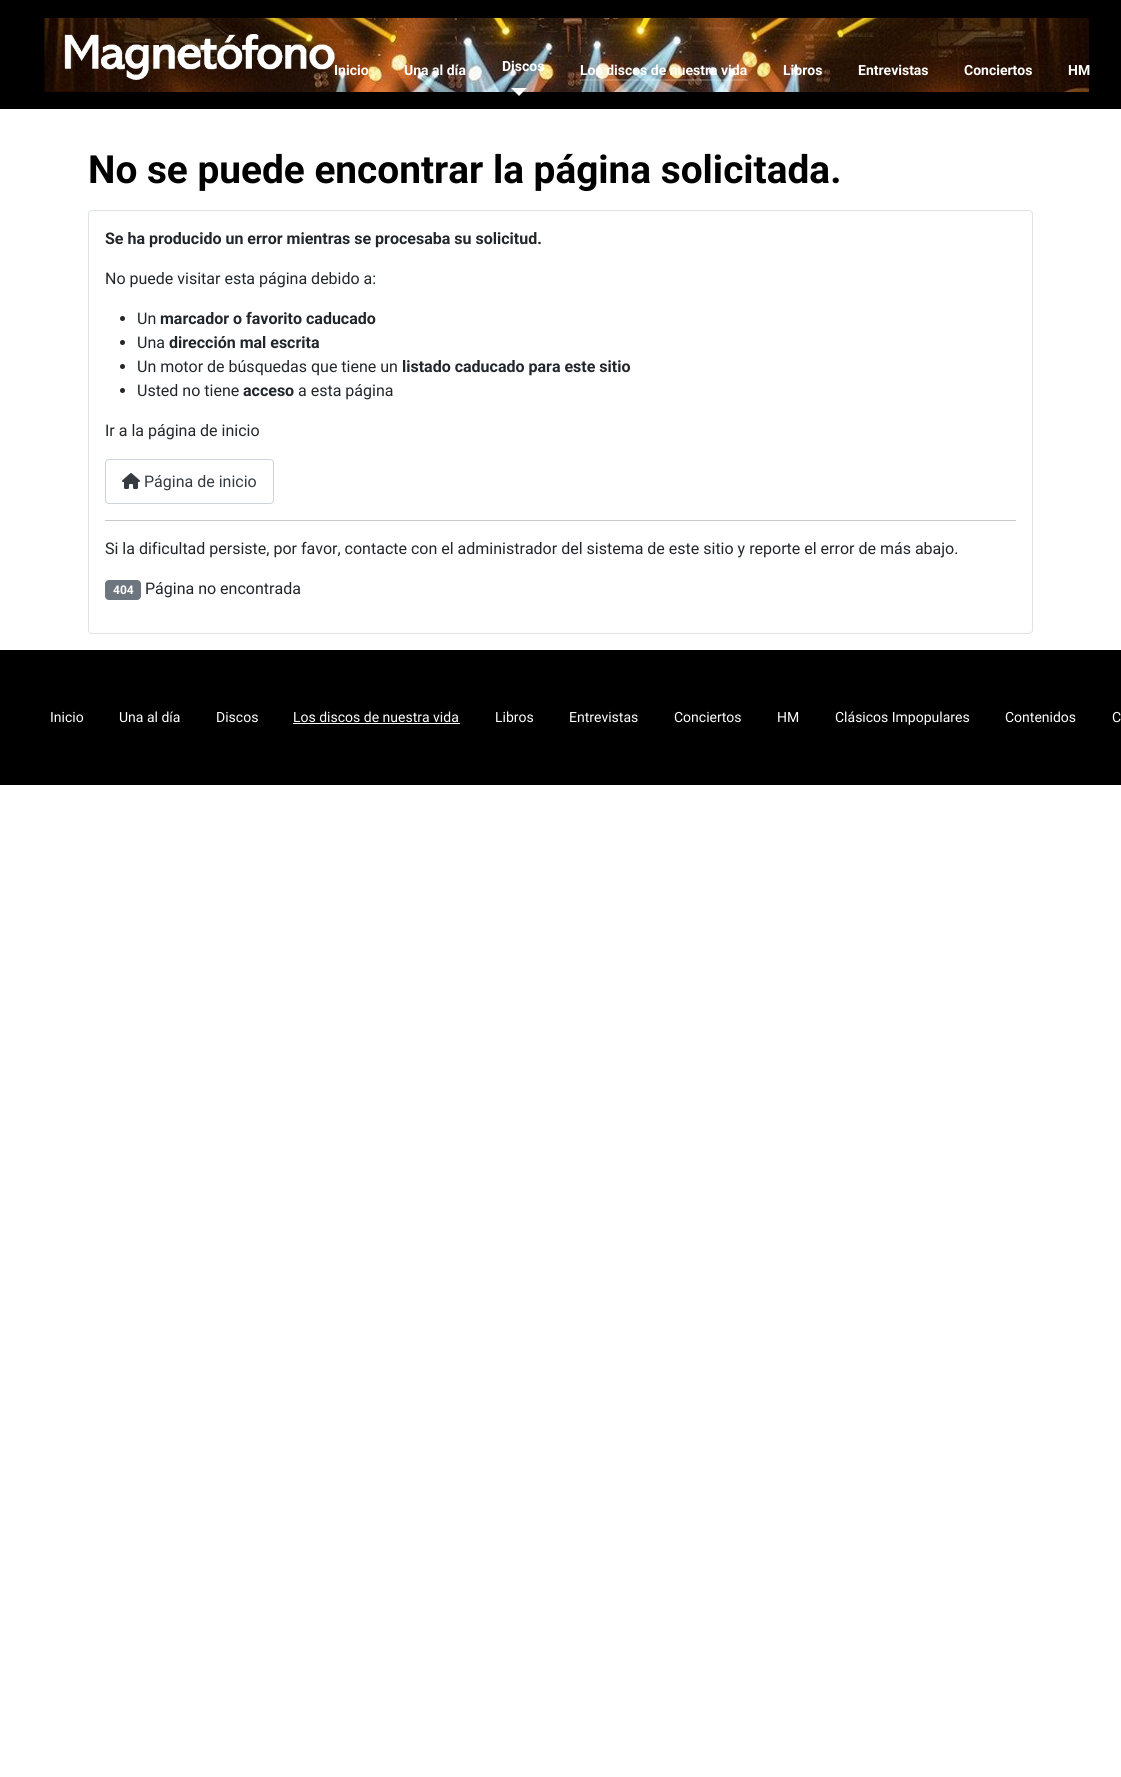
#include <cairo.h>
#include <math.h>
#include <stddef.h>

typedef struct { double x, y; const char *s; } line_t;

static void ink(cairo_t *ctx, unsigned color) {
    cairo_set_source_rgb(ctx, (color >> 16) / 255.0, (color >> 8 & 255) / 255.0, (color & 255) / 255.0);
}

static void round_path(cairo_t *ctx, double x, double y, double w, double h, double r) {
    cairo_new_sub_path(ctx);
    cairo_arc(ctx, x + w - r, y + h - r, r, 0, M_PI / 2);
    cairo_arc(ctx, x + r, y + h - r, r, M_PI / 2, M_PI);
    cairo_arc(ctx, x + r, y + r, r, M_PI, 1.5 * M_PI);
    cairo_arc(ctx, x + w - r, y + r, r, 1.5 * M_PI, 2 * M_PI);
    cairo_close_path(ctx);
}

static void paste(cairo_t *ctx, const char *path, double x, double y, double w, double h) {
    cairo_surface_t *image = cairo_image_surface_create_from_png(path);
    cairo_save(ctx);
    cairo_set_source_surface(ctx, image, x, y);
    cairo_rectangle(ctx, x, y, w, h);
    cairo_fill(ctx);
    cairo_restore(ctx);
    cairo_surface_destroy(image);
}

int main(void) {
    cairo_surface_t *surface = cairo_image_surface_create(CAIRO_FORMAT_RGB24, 1121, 1777);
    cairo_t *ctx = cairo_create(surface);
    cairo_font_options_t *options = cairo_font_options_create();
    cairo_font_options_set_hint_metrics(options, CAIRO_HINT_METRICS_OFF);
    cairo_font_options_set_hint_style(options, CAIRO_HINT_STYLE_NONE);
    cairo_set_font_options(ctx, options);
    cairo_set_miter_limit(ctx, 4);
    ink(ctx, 0xFFFFFF);
    cairo_paint(ctx);
    ink(ctx, 0x000000);
    cairo_rectangle(ctx, 0, 0, 1121, 109);
    cairo_fill(ctx);
    paste(ctx, "media/1.png", 44, 17, 1045, 75);
    cairo_select_font_face(ctx, "Roboto", CAIRO_FONT_SLANT_NORMAL, CAIRO_FONT_WEIGHT_BOLD);
    cairo_set_font_size(ctx, 14);
    ink(ctx, 0xFFFFFF);
    {
        static const line_t items[] = {
            {334, 75, "Inicio"},
            {404, 75, "Una al día"},
            {502, 71, "Discos"},
        };
        for (size_t i = 0; i < sizeof items / sizeof *items; i++) {
            cairo_move_to(ctx, items[i].x, items[i].y);
            cairo_show_text(ctx, items[i].s);
        }
    }
    cairo_new_path(ctx);
    cairo_move_to(ctx, 511, 88);
    cairo_line_to(ctx, 527, 88);
    cairo_line_to(ctx, 519, 96);
    cairo_close_path(ctx);
    cairo_fill(ctx);
    cairo_move_to(ctx, 580, 75);
    cairo_show_text(ctx, "Los discos de nuestra vida");
    cairo_set_source_rgba(ctx, 1, 1, 1, 0.2);
    cairo_rectangle(ctx, 580, 79, 168, 2);
    cairo_fill(ctx);
    ink(ctx, 0xFFFFFF);
    {
        static const line_t items[] = {
            {783, 75, "Libros"},
            {858, 75, "Entrevistas"},
            {964, 75, "Conciertos"},
            {1068, 75, "HM"},
        };
        for (size_t i = 0; i < sizeof items / sizeof *items; i++) {
            cairo_move_to(ctx, items[i].x, items[i].y);
            cairo_show_text(ctx, items[i].s);
        }
    }
    cairo_set_font_size(ctx, 38.8);
    ink(ctx, 0x000000);
    cairo_move_to(ctx, 88, 183);
    cairo_show_text(ctx, "No se puede encontrar la página solicitada.");
    round_path(ctx, 88.5, 210.5, 944, 423, 3.5);
    ink(ctx, 0xDFE3E7);
    cairo_set_line_width(ctx, 1);
    cairo_stroke(ctx);
    cairo_set_font_size(ctx, 16);
    ink(ctx, 0x22262A);
    cairo_move_to(ctx, 105, 244);
    cairo_show_text(ctx, "Se ha producido un error mientras se procesaba su solicitud.");
    cairo_select_font_face(ctx, "Roboto", CAIRO_FONT_SLANT_NORMAL, CAIRO_FONT_WEIGHT_NORMAL);
    cairo_move_to(ctx, 105, 284);
    cairo_show_text(ctx, "No puede visitar esta página debido a:");
    cairo_new_path(ctx);
    cairo_arc(ctx, 122.5, 318.5, 2.5, 0, 2 * M_PI);
    cairo_fill(ctx);
    cairo_move_to(ctx, 137, 324);
    cairo_show_text(ctx, "Un");
    cairo_select_font_face(ctx, "Roboto", CAIRO_FONT_SLANT_NORMAL, CAIRO_FONT_WEIGHT_BOLD);
    cairo_move_to(ctx, 160, 324);
    cairo_show_text(ctx, "marcador o favorito caducado");
    cairo_new_path(ctx);
    cairo_arc(ctx, 122.5, 342.5, 2.5, 0, 2 * M_PI);
    cairo_fill(ctx);
    cairo_select_font_face(ctx, "Roboto", CAIRO_FONT_SLANT_NORMAL, CAIRO_FONT_WEIGHT_NORMAL);
    cairo_move_to(ctx, 137, 348);
    cairo_show_text(ctx, "Una");
    cairo_select_font_face(ctx, "Roboto", CAIRO_FONT_SLANT_NORMAL, CAIRO_FONT_WEIGHT_BOLD);
    cairo_move_to(ctx, 169, 348);
    cairo_show_text(ctx, "dirección mal escrita");
    cairo_new_path(ctx);
    cairo_arc(ctx, 122.5, 366.5, 2.5, 0, 2 * M_PI);
    cairo_fill(ctx);
    cairo_select_font_face(ctx, "Roboto", CAIRO_FONT_SLANT_NORMAL, CAIRO_FONT_WEIGHT_NORMAL);
    cairo_move_to(ctx, 137, 372);
    cairo_show_text(ctx, "Un motor de búsquedas que tiene un");
    cairo_select_font_face(ctx, "Roboto", CAIRO_FONT_SLANT_NORMAL, CAIRO_FONT_WEIGHT_BOLD);
    cairo_move_to(ctx, 402, 372);
    cairo_show_text(ctx, "listado caducado para este sitio");
    cairo_new_path(ctx);
    cairo_arc(ctx, 122.5, 390.5, 2.5, 0, 2 * M_PI);
    cairo_fill(ctx);
    cairo_select_font_face(ctx, "Roboto", CAIRO_FONT_SLANT_NORMAL, CAIRO_FONT_WEIGHT_NORMAL);
    cairo_move_to(ctx, 137, 396);
    cairo_show_text(ctx, "Usted no tiene");
    cairo_select_font_face(ctx, "Roboto", CAIRO_FONT_SLANT_NORMAL, CAIRO_FONT_WEIGHT_BOLD);
    cairo_move_to(ctx, 243, 396);
    cairo_show_text(ctx, "acceso");
    cairo_select_font_face(ctx, "Roboto", CAIRO_FONT_SLANT_NORMAL, CAIRO_FONT_WEIGHT_NORMAL);
    cairo_move_to(ctx, 298, 396);
    cairo_show_text(ctx, "a esta página");
    cairo_move_to(ctx, 105, 436);
    cairo_show_text(ctx, "Ir a la página de inicio");
    round_path(ctx, 105.5, 459.5, 168, 44, 3.5);
    ink(ctx, 0xCED4DA);
    cairo_stroke(ctx);
    paste(ctx, "media/2.png", 122, 473, 18, 16);
    ink(ctx, 0x353B41);
    cairo_move_to(ctx, 144, 487);
    cairo_show_text(ctx, "Página de inicio");
    ink(ctx, 0xC8C9CA);
    cairo_rectangle(ctx, 105, 520, 911, 1);
    cairo_fill(ctx);
    ink(ctx, 0x22262A);
    cairo_move_to(ctx, 105, 554);
    cairo_show_text(ctx, "Si la dificultad persiste, por favor, contacte con el administrador del sistema de este sitio y reporte el error de más abajo.");
    ink(ctx, 0x6D757E);
    round_path(ctx, 105, 580, 36, 20, 4);
    cairo_fill(ctx);
    cairo_select_font_face(ctx, "Roboto", CAIRO_FONT_SLANT_NORMAL, CAIRO_FONT_WEIGHT_BOLD);
    cairo_set_font_size(ctx, 12);
    ink(ctx, 0xFFFFFF);
    cairo_move_to(ctx, 113, 594);
    cairo_show_text(ctx, "404");
    cairo_select_font_face(ctx, "Roboto", CAIRO_FONT_SLANT_NORMAL, CAIRO_FONT_WEIGHT_NORMAL);
    cairo_set_font_size(ctx, 16);
    ink(ctx, 0x22262A);
    cairo_move_to(ctx, 145, 594);
    cairo_show_text(ctx, "Página no encontrada");
    ink(ctx, 0x000000);
    cairo_rectangle(ctx, 0, 650, 1121, 135);
    cairo_fill(ctx);
    cairo_set_font_size(ctx, 14);
    ink(ctx, 0xFFFFFF);
    {
        static const line_t items[] = {
            {50, 722, "Inicio"},
            {119, 722, "Una al día"},
            {216, 722, "Discos"},
            {293, 722, "Los discos de nuestra vida"},
        };
        for (size_t i = 0; i < sizeof items / sizeof *items; i++) {
            cairo_move_to(ctx, items[i].x, items[i].y);
            cairo_show_text(ctx, items[i].s);
        }
    }
    cairo_rectangle(ctx, 293, 723, 167, 1);
    cairo_fill(ctx);
    {
        static const line_t items[] = {
            {495, 722, "Libros"},
            {569, 722, "Entrevistas"},
            {674, 722, "Conciertos"},
            {777, 722, "HM"},
            {835, 722, "Clásicos Impopulares"},
            {1005, 722, "Contenidos"},
            {1112, 722, "C"},
        };
        for (size_t i = 0; i < sizeof items / sizeof *items; i++) {
            cairo_move_to(ctx, items[i].x, items[i].y);
            cairo_show_text(ctx, items[i].s);
        }
    }
    cairo_surface_write_to_png(surface, "image.png");
    cairo_font_options_destroy(options);
    cairo_destroy(ctx);
    cairo_surface_destroy(surface);
    return 0;
}
